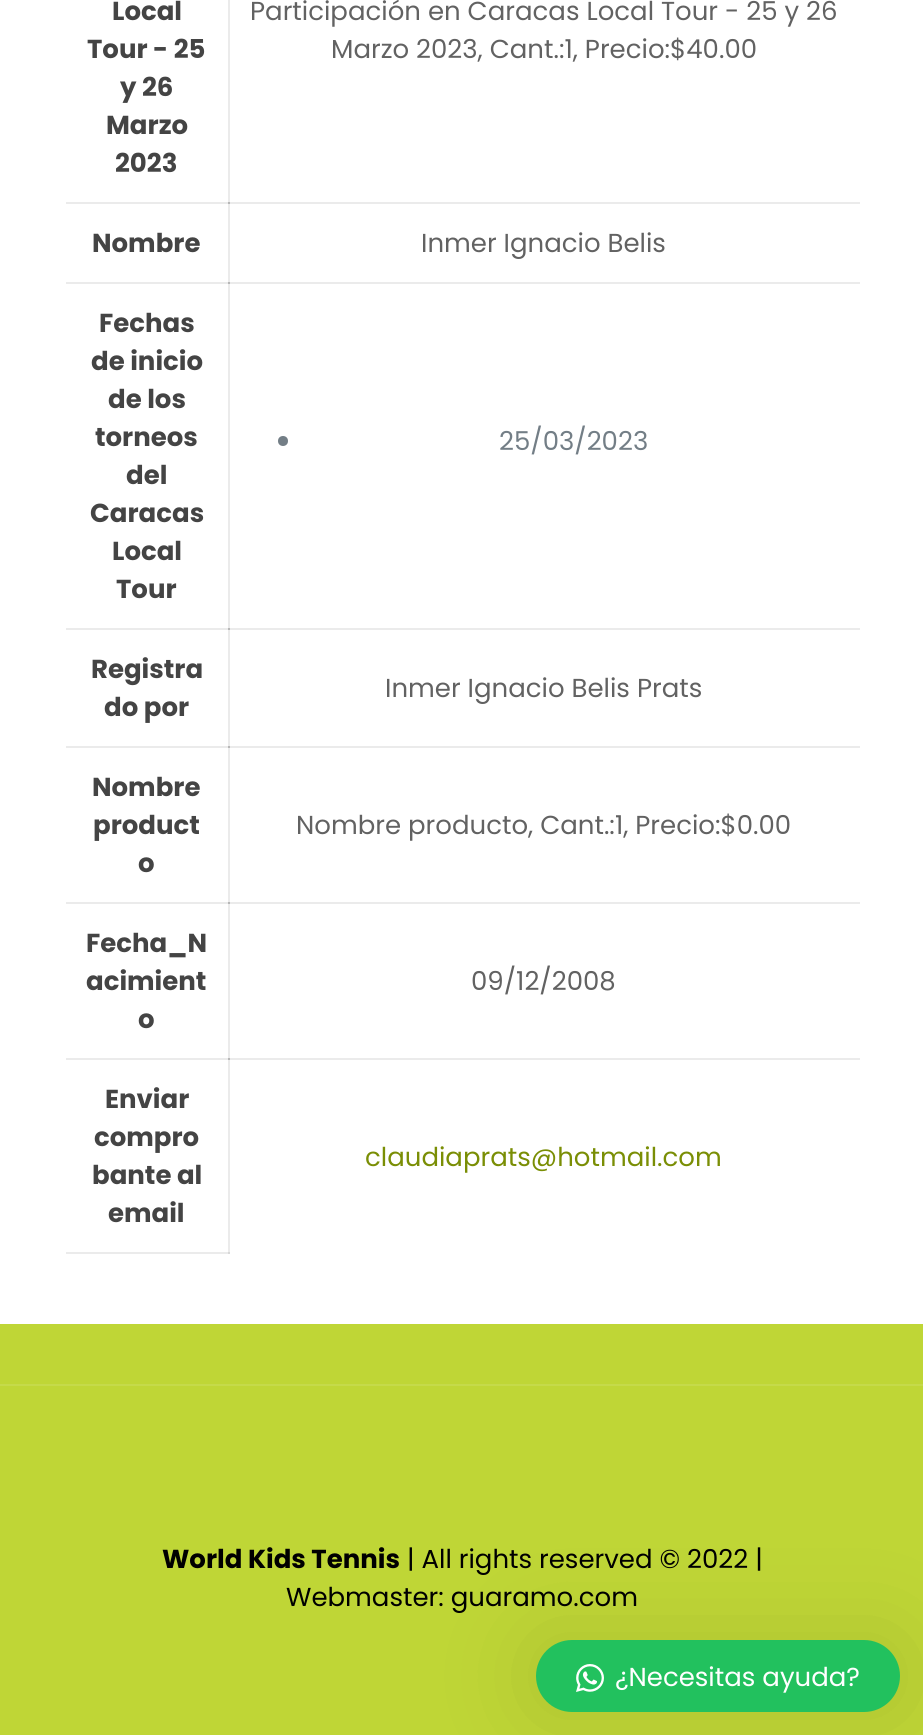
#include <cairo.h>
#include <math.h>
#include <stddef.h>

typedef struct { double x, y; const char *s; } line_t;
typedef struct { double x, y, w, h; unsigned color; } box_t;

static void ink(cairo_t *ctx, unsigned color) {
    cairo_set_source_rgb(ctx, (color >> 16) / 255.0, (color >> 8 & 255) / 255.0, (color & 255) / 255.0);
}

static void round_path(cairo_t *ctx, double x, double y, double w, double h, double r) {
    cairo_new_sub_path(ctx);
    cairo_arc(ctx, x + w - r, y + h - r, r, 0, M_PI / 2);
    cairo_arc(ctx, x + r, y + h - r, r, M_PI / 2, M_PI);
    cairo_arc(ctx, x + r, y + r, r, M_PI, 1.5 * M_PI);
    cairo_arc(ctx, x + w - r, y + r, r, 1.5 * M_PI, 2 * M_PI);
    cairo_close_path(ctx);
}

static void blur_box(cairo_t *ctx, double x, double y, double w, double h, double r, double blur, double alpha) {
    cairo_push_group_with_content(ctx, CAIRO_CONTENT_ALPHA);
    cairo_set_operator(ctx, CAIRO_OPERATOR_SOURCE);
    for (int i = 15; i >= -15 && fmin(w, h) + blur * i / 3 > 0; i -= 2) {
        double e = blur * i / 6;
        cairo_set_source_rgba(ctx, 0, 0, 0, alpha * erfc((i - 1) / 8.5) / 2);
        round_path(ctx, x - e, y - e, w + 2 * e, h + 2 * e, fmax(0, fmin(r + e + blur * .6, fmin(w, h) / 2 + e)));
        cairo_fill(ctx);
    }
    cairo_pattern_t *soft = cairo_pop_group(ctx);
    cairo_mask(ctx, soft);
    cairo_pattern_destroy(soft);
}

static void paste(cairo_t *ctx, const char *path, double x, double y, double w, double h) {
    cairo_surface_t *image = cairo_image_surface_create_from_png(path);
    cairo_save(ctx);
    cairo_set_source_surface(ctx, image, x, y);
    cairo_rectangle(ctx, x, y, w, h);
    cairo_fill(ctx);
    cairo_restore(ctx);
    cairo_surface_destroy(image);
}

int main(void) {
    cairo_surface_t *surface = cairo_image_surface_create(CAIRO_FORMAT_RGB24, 923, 1735);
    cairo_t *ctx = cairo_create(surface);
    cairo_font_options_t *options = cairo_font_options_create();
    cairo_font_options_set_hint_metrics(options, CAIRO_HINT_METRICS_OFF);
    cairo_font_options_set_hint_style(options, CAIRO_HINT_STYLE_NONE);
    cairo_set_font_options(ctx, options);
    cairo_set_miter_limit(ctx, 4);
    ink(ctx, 0xFFFFFF);
    cairo_paint(ctx);
    {
        static const box_t items[] = {
            {66, 202, 164, 2, 0xEBEBEB},
            {228, 0, 2, 204, 0xEBEBEB},
            {228, 202, 632, 2, 0xEBEBEB},
            {66, 282, 164, 2, 0xEBEBEB},
            {228, 202, 2, 82, 0xEBEBEB},
            {228, 202, 2, 2, 0xB7B7B7},
            {228, 282, 632, 2, 0xEBEBEB},
            {66, 628, 164, 2, 0xEBEBEB},
            {228, 282, 2, 348, 0xEBEBEB},
            {228, 282, 2, 2, 0xB7B7B7},
            {228, 628, 632, 2, 0xEBEBEB},
            {66, 746, 164, 2, 0xEBEBEB},
            {228, 628, 2, 120, 0xEBEBEB},
            {228, 628, 2, 2, 0xB7B7B7},
            {228, 746, 632, 2, 0xEBEBEB},
            {66, 902, 164, 2, 0xEBEBEB},
            {228, 746, 2, 158, 0xEBEBEB},
            {228, 746, 2, 2, 0xB7B7B7},
            {228, 902, 632, 2, 0xEBEBEB},
            {66, 1058, 164, 2, 0xEBEBEB},
            {228, 902, 2, 158, 0xEBEBEB},
            {228, 902, 2, 2, 0xB7B7B7},
            {228, 1058, 632, 2, 0xEBEBEB},
            {66, 1252, 164, 2, 0xEBEBEB},
        };
        for (size_t i = 0; i < sizeof items / sizeof *items; i++) {
            ink(ctx, items[i].color);
            cairo_rectangle(ctx, items[i].x, items[i].y, items[i].w, items[i].h);
            cairo_fill(ctx);
        }
    }
    cairo_select_font_face(ctx, "Poppins", CAIRO_FONT_SLANT_NORMAL, CAIRO_FONT_WEIGHT_BOLD);
    cairo_set_font_size(ctx, 26);
    ink(ctx, 0x444444);
    {
        static const line_t items[] = {
            {112, 20, "Local"},
            {87, 58, "Tour - 25"},
            {120, 96, "y 26"},
            {106, 134, "Marzo"},
            {115, 172, "2023"},
        };
        for (size_t i = 0; i < sizeof items / sizeof *items; i++) {
            cairo_move_to(ctx, items[i].x, items[i].y);
            cairo_show_text(ctx, items[i].s);
        }
    }
    cairo_select_font_face(ctx, "Poppins", CAIRO_FONT_SLANT_NORMAL, CAIRO_FONT_WEIGHT_NORMAL);
    ink(ctx, 0x626262);
    cairo_move_to(ctx, 250, 20);
    cairo_show_text(ctx, "Participación en Caracas Local Tour - 25 y 26");
    cairo_move_to(ctx, 331, 58);
    cairo_show_text(ctx, "Marzo 2023, Cant.:1, Precio:$40.00");
    cairo_select_font_face(ctx, "Poppins", CAIRO_FONT_SLANT_NORMAL, CAIRO_FONT_WEIGHT_BOLD);
    ink(ctx, 0x444444);
    cairo_move_to(ctx, 92, 252);
    cairo_show_text(ctx, "Nombre");
    cairo_select_font_face(ctx, "Poppins", CAIRO_FONT_SLANT_NORMAL, CAIRO_FONT_WEIGHT_NORMAL);
    ink(ctx, 0x626262);
    cairo_move_to(ctx, 421, 252);
    cairo_show_text(ctx, "Inmer Ignacio Belis");
    cairo_select_font_face(ctx, "Poppins", CAIRO_FONT_SLANT_NORMAL, CAIRO_FONT_WEIGHT_BOLD);
    ink(ctx, 0x444444);
    {
        static const line_t items[] = {
            {99, 332, "Fechas"},
            {91, 370, "de inicio"},
            {108, 408, "de los"},
            {95, 446, "torneos"},
            {126, 484, "del"},
            {90, 522, "Caracas"},
            {112, 560, "Local"},
            {116, 598, "Tour"},
        };
        for (size_t i = 0; i < sizeof items / sizeof *items; i++) {
            cairo_move_to(ctx, items[i].x, items[i].y);
            cairo_show_text(ctx, items[i].s);
        }
    }
    ink(ctx, 0x737E86);
    cairo_new_path(ctx);
    cairo_arc(ctx, 283, 441, 5, 0, 2 * M_PI);
    cairo_fill(ctx);
    cairo_select_font_face(ctx, "Poppins", CAIRO_FONT_SLANT_NORMAL, CAIRO_FONT_WEIGHT_NORMAL);
    cairo_move_to(ctx, 499, 450);
    cairo_show_text(ctx, "25/03/2023");
    cairo_select_font_face(ctx, "Poppins", CAIRO_FONT_SLANT_NORMAL, CAIRO_FONT_WEIGHT_BOLD);
    ink(ctx, 0x444444);
    cairo_move_to(ctx, 91, 678);
    cairo_show_text(ctx, "Registra");
    cairo_move_to(ctx, 104, 716);
    cairo_show_text(ctx, "do por");
    cairo_select_font_face(ctx, "Poppins", CAIRO_FONT_SLANT_NORMAL, CAIRO_FONT_WEIGHT_NORMAL);
    ink(ctx, 0x626262);
    cairo_move_to(ctx, 385, 697);
    cairo_show_text(ctx, "Inmer Ignacio Belis Prats");
    cairo_select_font_face(ctx, "Poppins", CAIRO_FONT_SLANT_NORMAL, CAIRO_FONT_WEIGHT_BOLD);
    ink(ctx, 0x444444);
    {
        static const line_t items[] = {
            {92, 796, "Nombre"},
            {93, 834, "product"},
            {138, 872, "o"},
        };
        for (size_t i = 0; i < sizeof items / sizeof *items; i++) {
            cairo_move_to(ctx, items[i].x, items[i].y);
            cairo_show_text(ctx, items[i].s);
        }
    }
    cairo_select_font_face(ctx, "Poppins", CAIRO_FONT_SLANT_NORMAL, CAIRO_FONT_WEIGHT_NORMAL);
    ink(ctx, 0x626262);
    cairo_move_to(ctx, 296, 834);
    cairo_show_text(ctx, "Nombre producto, Cant.:1, Precio:$0.00");
    cairo_select_font_face(ctx, "Poppins", CAIRO_FONT_SLANT_NORMAL, CAIRO_FONT_WEIGHT_BOLD);
    ink(ctx, 0x444444);
    {
        static const line_t items[] = {
            {86, 952, "Fecha_N"},
            {86, 990, "acimient"},
            {138, 1028, "o"},
        };
        for (size_t i = 0; i < sizeof items / sizeof *items; i++) {
            cairo_move_to(ctx, items[i].x, items[i].y);
            cairo_show_text(ctx, items[i].s);
        }
    }
    cairo_select_font_face(ctx, "Poppins", CAIRO_FONT_SLANT_NORMAL, CAIRO_FONT_WEIGHT_NORMAL);
    ink(ctx, 0x626262);
    cairo_move_to(ctx, 471, 990);
    cairo_show_text(ctx, "09/12/2008");
    {
        static const box_t items[] = {
            {228, 1058, 2, 196, 0xEBEBEB},
            {228, 1058, 2, 2, 0xB7B7B7},
            {228, 1252, 2, 2, 0xD8D8D8},
        };
        for (size_t i = 0; i < sizeof items / sizeof *items; i++) {
            ink(ctx, items[i].color);
            cairo_rectangle(ctx, items[i].x, items[i].y, items[i].w, items[i].h);
            cairo_fill(ctx);
        }
    }
    cairo_select_font_face(ctx, "Poppins", CAIRO_FONT_SLANT_NORMAL, CAIRO_FONT_WEIGHT_BOLD);
    ink(ctx, 0x444444);
    {
        static const line_t items[] = {
            {105, 1108, "Enviar"},
            {94, 1146, "compro"},
            {92, 1184, "bante al"},
            {108, 1222, "email"},
        };
        for (size_t i = 0; i < sizeof items / sizeof *items; i++) {
            cairo_move_to(ctx, items[i].x, items[i].y);
            cairo_show_text(ctx, items[i].s);
        }
    }
    cairo_select_font_face(ctx, "Poppins", CAIRO_FONT_SLANT_NORMAL, CAIRO_FONT_WEIGHT_NORMAL);
    ink(ctx, 0x7A8E05);
    cairo_move_to(ctx, 365, 1166);
    cairo_show_text(ctx, "claudiaprats@hotmail.com");
    ink(ctx, 0xBFD636);
    cairo_rectangle(ctx, 0, 1324, 923, 411);
    cairo_fill(ctx);
    ink(ctx, 0xC5DA4A);
    cairo_rectangle(ctx, 0, 1384, 923, 2);
    cairo_fill(ctx);
    cairo_select_font_face(ctx, "Poppins", CAIRO_FONT_SLANT_NORMAL, CAIRO_FONT_WEIGHT_BOLD);
    ink(ctx, 0x000000);
    cairo_move_to(ctx, 162, 1568);
    cairo_show_text(ctx, "World Kids Tennis");
    cairo_select_font_face(ctx, "Poppins", CAIRO_FONT_SLANT_NORMAL, CAIRO_FONT_WEIGHT_NORMAL);
    cairo_move_to(ctx, 407, 1568);
    cairo_show_text(ctx, "| All rights reserved © 2022 |");
    cairo_move_to(ctx, 286, 1606);
    cairo_show_text(ctx, "Webmaster: guaramo.com");
    ink(ctx, 0x000000);
    blur_box(ctx, 536, 1640, 364, 72, 36, 50, 0.1);
    ink(ctx, 0x22C15E);
    round_path(ctx, 536, 1640, 364, 72, 36);
    cairo_fill(ctx);
    paste(ctx, "media/1.png", 576, 1664, 28, 28);
    ink(ctx, 0xFFFFFF);
    cairo_move_to(ctx, 615, 1686);
    cairo_show_text(ctx, "¿Necesitas ayuda?");
    cairo_surface_write_to_png(surface, "image.png");
    cairo_font_options_destroy(options);
    cairo_destroy(ctx);
    cairo_surface_destroy(surface);
    return 0;
}
